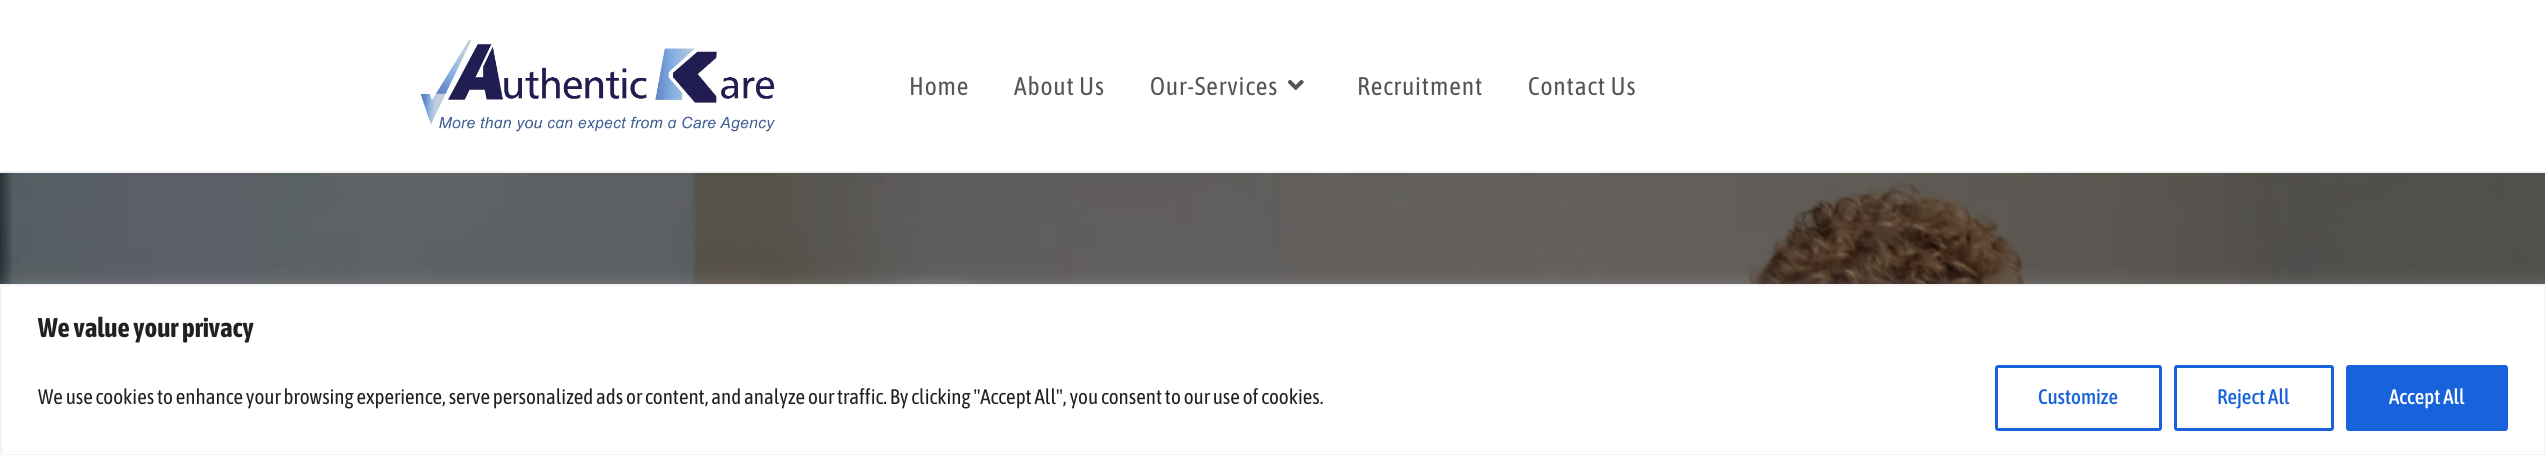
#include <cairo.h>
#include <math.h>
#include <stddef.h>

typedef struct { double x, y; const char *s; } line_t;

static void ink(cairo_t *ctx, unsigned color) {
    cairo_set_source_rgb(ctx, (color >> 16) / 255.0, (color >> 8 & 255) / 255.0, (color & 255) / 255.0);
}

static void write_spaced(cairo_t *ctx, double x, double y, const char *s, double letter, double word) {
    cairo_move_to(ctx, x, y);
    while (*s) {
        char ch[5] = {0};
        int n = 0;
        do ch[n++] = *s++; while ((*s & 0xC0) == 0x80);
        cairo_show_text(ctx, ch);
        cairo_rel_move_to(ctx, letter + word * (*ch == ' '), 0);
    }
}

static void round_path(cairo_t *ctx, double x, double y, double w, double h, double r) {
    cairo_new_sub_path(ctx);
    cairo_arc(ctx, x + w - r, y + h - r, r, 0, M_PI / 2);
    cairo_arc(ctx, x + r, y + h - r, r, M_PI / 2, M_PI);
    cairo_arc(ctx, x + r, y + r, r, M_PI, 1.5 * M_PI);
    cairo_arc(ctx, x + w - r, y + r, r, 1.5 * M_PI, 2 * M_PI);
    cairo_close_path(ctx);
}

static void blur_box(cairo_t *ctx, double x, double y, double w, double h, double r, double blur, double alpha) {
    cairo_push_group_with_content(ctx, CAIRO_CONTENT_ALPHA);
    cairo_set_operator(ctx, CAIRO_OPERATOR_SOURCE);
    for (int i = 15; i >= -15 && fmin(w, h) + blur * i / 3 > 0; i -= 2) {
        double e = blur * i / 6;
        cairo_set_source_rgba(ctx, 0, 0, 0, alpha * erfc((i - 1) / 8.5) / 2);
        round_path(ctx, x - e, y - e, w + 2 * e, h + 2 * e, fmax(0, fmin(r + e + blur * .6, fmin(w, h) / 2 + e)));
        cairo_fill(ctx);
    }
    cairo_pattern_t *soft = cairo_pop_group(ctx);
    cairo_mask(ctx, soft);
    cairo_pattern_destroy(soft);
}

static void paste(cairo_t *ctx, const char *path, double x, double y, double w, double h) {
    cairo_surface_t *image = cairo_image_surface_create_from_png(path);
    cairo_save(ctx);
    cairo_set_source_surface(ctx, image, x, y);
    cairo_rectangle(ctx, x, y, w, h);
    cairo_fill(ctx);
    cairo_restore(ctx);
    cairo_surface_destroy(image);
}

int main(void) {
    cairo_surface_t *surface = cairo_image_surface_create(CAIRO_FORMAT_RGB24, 2545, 455);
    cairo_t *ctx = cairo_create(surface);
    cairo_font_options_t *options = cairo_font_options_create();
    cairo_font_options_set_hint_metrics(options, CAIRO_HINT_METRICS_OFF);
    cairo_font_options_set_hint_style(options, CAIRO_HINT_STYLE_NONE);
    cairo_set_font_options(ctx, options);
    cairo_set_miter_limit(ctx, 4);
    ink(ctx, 0xFFFFFF);
    cairo_paint(ctx);
    ink(ctx, 0xF1F1F1);
    cairo_rectangle(ctx, 0, 171, 2545, 2);
    cairo_fill(ctx);
    paste(ctx, "media/1.png", 420, 40, 355, 92);
    cairo_select_font_face(ctx, "Asap Condensed", CAIRO_FONT_SLANT_NORMAL, CAIRO_FONT_WEIGHT_NORMAL);
    cairo_set_font_size(ctx, 25.5);
    ink(ctx, 0x555555);
    {
        static const line_t items[] = {
            {909, 95, "Home"},
            {1014, 95, "About Us"},
            {1150, 95, "Our-Services"},
        };
        for (size_t i = 0; i < sizeof items / sizeof *items; i++) {
            write_spaced(ctx, items[i].x, items[i].y, items[i].s, 0.9, 0);
        }
    }
    paste(ctx, "media/2.png", 1287, 79, 17, 11);
    write_spaced(ctx, 1357, 95, "Recruitment", 0.9, 0);
    write_spaced(ctx, 1528, 95, "Contact Us", 0.9, 0);
    paste(ctx, "media/3.png", 0, 173, 2545, 111);
    ink(ctx, 0xACABAB);
    blur_box(ctx, 0, 282, 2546, 173, 0, 7.5, 0.3);
    ink(ctx, 0xFFFFFF);
    cairo_rectangle(ctx, 1, 285, 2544, 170);
    cairo_fill_preserve(ctx);
    ink(ctx, 0xF4F4F4);
    cairo_stroke(ctx);
    cairo_select_font_face(ctx, "Asap Condensed", CAIRO_FONT_SLANT_NORMAL, CAIRO_FONT_WEIGHT_BOLD);
    cairo_set_font_size(ctx, 27);
    ink(ctx, 0x212121);
    cairo_move_to(ctx, 38, 337);
    cairo_show_text(ctx, "We value your privacy");
    cairo_select_font_face(ctx, "Asap Condensed", CAIRO_FONT_SLANT_NORMAL, CAIRO_FONT_WEIGHT_NORMAL);
    cairo_set_font_size(ctx, 21);
    cairo_move_to(ctx, 38, 404);
    cairo_show_text(ctx, "We use cookies to enhance your browsing experience, serve personalized ads or content, and analyze our traffic. By clicking \"Accept All\", you consent to our use of cookies.");
    round_path(ctx, 1996.5, 366.5, 164, 63, 1.5);
    ink(ctx, 0x1863DC);
    cairo_set_line_width(ctx, 3);
    cairo_stroke(ctx);
    cairo_select_font_face(ctx, "Asap Condensed Medium", CAIRO_FONT_SLANT_NORMAL, CAIRO_FONT_WEIGHT_NORMAL);
    cairo_move_to(ctx, 2038, 404);
    cairo_show_text(ctx, "Customize");
    round_path(ctx, 2175.5, 366.5, 157, 63, 1.5);
    cairo_stroke(ctx);
    cairo_move_to(ctx, 2217, 404);
    cairo_show_text(ctx, "Reject All");
    round_path(ctx, 2347.5, 366.5, 159, 63, 1.5);
    cairo_fill_preserve(ctx);
    cairo_stroke(ctx);
    ink(ctx, 0xFFFFFF);
    cairo_move_to(ctx, 2389, 404);
    cairo_show_text(ctx, "Accept All");
    cairo_surface_write_to_png(surface, "image.png");
    cairo_font_options_destroy(options);
    cairo_destroy(ctx);
    cairo_surface_destroy(surface);
    return 0;
}
